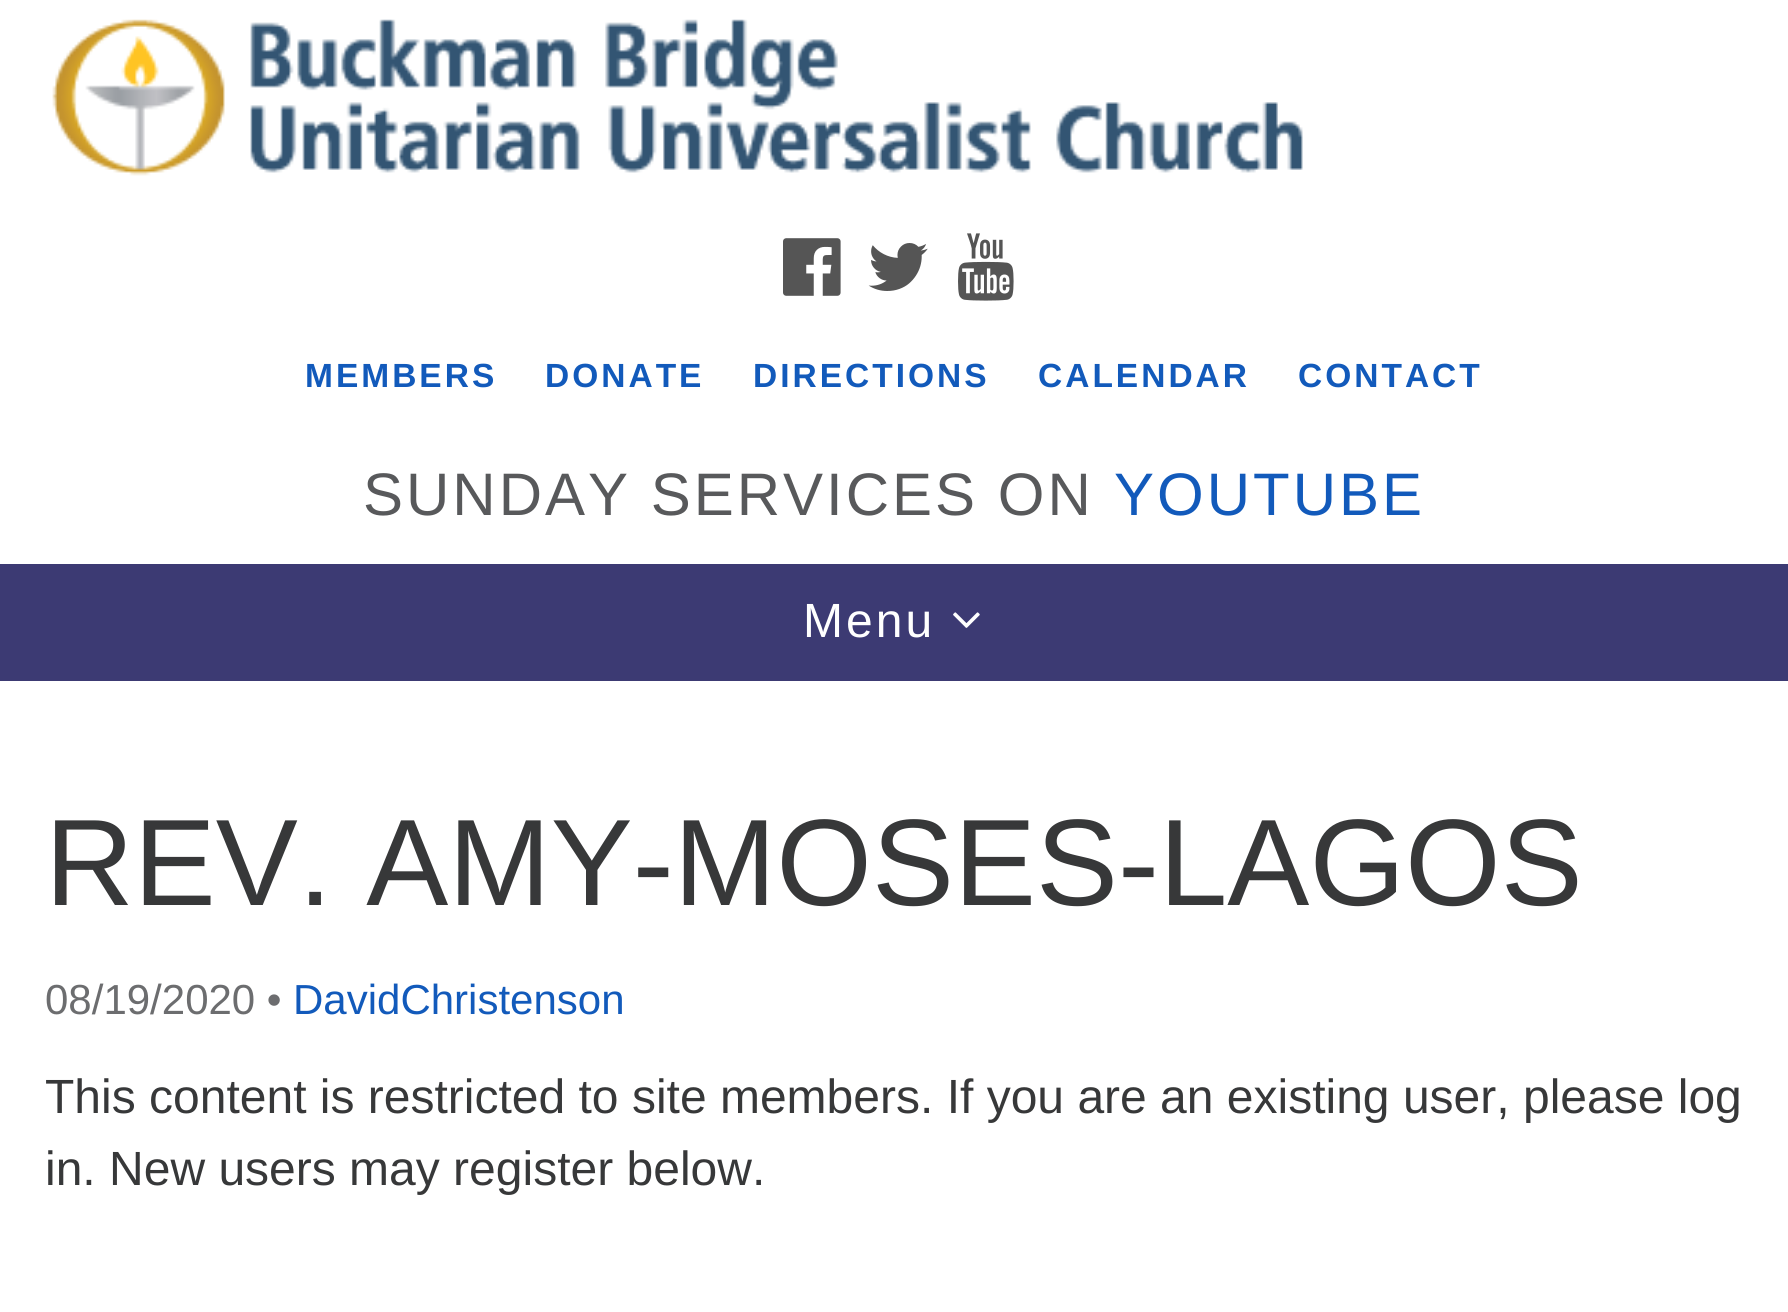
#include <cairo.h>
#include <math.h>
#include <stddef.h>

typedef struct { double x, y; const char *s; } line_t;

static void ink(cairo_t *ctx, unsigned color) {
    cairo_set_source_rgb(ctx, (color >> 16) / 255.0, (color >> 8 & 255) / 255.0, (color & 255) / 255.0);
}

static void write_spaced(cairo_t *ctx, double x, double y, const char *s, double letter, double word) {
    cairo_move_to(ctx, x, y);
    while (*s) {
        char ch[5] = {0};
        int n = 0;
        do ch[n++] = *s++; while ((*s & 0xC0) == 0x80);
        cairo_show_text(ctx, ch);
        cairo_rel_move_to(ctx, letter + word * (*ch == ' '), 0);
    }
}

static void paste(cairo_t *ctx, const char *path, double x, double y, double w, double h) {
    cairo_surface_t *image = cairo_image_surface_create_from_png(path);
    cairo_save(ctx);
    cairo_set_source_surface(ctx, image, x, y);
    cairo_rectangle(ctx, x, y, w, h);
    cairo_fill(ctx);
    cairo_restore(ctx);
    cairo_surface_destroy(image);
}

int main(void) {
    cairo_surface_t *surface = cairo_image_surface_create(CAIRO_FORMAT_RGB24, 1788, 1312);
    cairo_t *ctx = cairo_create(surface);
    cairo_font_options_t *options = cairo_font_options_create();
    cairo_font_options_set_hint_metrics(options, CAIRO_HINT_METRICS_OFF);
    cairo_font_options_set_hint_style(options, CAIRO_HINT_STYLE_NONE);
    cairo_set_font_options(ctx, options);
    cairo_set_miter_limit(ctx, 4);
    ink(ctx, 0xFFFFFF);
    cairo_paint(ctx);
    paste(ctx, "media/1.png", 52, 19, 1251, 157);
    paste(ctx, "media/2.png", 783, 238, 58, 58);
    paste(ctx, "media/3.png", 868, 243, 60, 48);
    paste(ctx, "media/4.png", 958, 233, 56, 68);
    cairo_select_font_face(ctx, "Liberation Sans", CAIRO_FONT_SLANT_NORMAL, CAIRO_FONT_WEIGHT_BOLD);
    cairo_set_font_size(ctx, 33.5);
    ink(ctx, 0x125ABB);
    {
        static const line_t items[] = {
            {305, 387, "MEMBERS"},
            {545, 387, "DONATE"},
            {753, 387, "DIRECTIONS"},
            {1038, 387, "CALENDAR"},
            {1298, 387, "CONTACT"},
        };
        for (size_t i = 0; i < sizeof items / sizeof *items; i++) {
            write_spaced(ctx, items[i].x, items[i].y, items[i].s, 3, 0);
        }
    }
    cairo_select_font_face(ctx, "Liberation Sans", CAIRO_FONT_SLANT_NORMAL, CAIRO_FONT_WEIGHT_NORMAL);
    cairo_set_font_size(ctx, 60);
    ink(ctx, 0x58595B);
    write_spaced(ctx, 363, 515, "SUNDAY SERVICES ON", 3, 0);
    ink(ctx, 0x125ABB);
    write_spaced(ctx, 1114, 515, "YOUTUBE", 3, 0);
    ink(ctx, 0x3C3A73);
    cairo_rectangle(ctx, 0, 564, 1788, 117);
    cairo_fill(ctx);
    cairo_set_font_size(ctx, 48);
    ink(ctx, 0xFFFFFF);
    write_spaced(ctx, 803, 637, "Menu", 3, 0);
    paste(ctx, "media/5.png", 953, 612, 27, 16);
    cairo_set_font_size(ctx, 123);
    ink(ctx, 0x373839);
    cairo_move_to(ctx, 45, 905);
    cairo_show_text(ctx, "REV. AMY-MOSES-LAGOS");
    cairo_set_font_size(ctx, 42);
    ink(ctx, 0x6C6D6F);
    cairo_move_to(ctx, 45, 1014);
    cairo_show_text(ctx, "08/19/2020 •");
    ink(ctx, 0x125ABB);
    cairo_move_to(ctx, 293, 1014);
    cairo_show_text(ctx, "DavidChristenson");
    cairo_set_font_size(ctx, 48);
    ink(ctx, 0x373839);
    cairo_move_to(ctx, 45, 1113);
    cairo_show_text(ctx, "This content is restricted to site members. If you are an existing user, please log");
    cairo_move_to(ctx, 45, 1185);
    cairo_show_text(ctx, "in. New users may register below.");
    cairo_surface_write_to_png(surface, "image.png");
    cairo_font_options_destroy(options);
    cairo_destroy(ctx);
    cairo_surface_destroy(surface);
    return 0;
}
